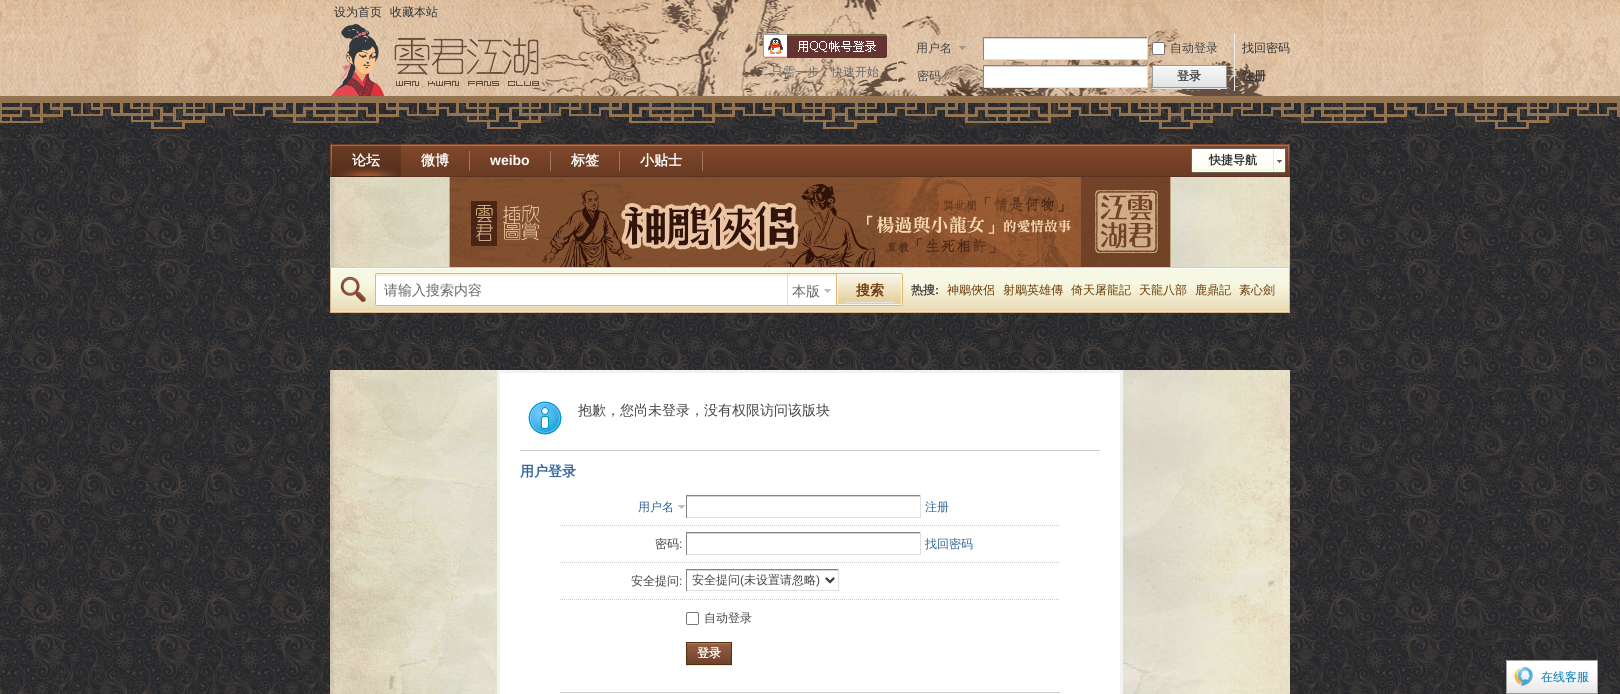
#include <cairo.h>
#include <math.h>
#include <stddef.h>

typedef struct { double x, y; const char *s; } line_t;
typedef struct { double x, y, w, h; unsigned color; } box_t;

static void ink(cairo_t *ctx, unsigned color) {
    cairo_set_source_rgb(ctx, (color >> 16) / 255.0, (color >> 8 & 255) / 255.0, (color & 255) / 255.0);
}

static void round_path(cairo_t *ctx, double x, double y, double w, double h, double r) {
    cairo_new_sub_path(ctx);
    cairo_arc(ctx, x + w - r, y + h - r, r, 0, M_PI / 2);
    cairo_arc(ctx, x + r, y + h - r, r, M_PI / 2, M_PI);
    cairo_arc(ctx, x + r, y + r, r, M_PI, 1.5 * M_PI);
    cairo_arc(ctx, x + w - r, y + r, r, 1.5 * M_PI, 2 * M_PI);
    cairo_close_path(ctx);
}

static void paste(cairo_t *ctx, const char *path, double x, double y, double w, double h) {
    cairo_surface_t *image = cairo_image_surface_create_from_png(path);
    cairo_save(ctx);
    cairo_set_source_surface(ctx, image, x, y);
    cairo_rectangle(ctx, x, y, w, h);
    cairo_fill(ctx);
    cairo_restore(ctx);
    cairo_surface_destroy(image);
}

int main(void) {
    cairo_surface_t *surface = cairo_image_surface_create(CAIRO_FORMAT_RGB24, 1620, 694);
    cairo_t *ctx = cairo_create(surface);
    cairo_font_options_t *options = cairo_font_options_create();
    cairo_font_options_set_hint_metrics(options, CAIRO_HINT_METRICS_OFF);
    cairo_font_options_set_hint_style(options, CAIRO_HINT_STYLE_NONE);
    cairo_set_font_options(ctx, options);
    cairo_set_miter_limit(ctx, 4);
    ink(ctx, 0xFFFFFF);
    cairo_paint(ctx);
    paste(ctx, "media/1.png", 0, 103, 1620, 591);
    paste(ctx, "media/2.png", 0, 0, 1620, 99);
    cairo_select_font_face(ctx, "WenQuanYi Zen Hei Medium", CAIRO_FONT_SLANT_NORMAL, CAIRO_FONT_WEIGHT_NORMAL);
    cairo_set_font_size(ctx, 12);
    ink(ctx, 0x333333);
    cairo_move_to(ctx, 334, 16);
    cairo_show_text(ctx, "设为首页");
    cairo_move_to(ctx, 390, 16);
    cairo_show_text(ctx, "收藏本站");
    paste(ctx, "media/3.png", 330, 24, 212, 72);
    ink(ctx, 0xCDCDCD);
    cairo_rectangle(ctx, 897, 34, 1, 50);
    cairo_fill(ctx);
    paste(ctx, "media/4.png", 763, 34, 124, 24);
    ink(ctx, 0x666666);
    cairo_move_to(ctx, 771, 76);
    cairo_show_text(ctx, "只需一步，快速开始");
    paste(ctx, "media/5.png", 959, 46, 7, 4);
    ink(ctx, 0x444444);
    cairo_move_to(ctx, 916, 52);
    cairo_show_text(ctx, "用户名");
    {
        static const box_t items[] = {
            {984, 39, 163, 20, 0xFFFFFF},
            {983, 38, 165, 1, 0xD4D4D4},
            {983, 37, 165, 1, 0x848484},
            {1147, 37, 1, 23, 0xE0E0E0},
            {983, 59, 165, 1, 0xE0E0E0},
            {983, 37, 1, 23, 0x848484},
        };
        for (size_t i = 0; i < sizeof items / sizeof *items; i++) {
            ink(ctx, items[i].color);
            cairo_rectangle(ctx, items[i].x, items[i].y, items[i].w, items[i].h);
            cairo_fill(ctx);
        }
    }
    ink(ctx, 0xFFFFFF);
    round_path(ctx, 1152.5, 42.5, 12, 12, 1.5);
    cairo_fill_preserve(ctx);
    ink(ctx, 0x767676);
    cairo_set_line_width(ctx, 1);
    cairo_stroke(ctx);
    ink(ctx, 0x444444);
    cairo_move_to(ctx, 1170, 52);
    cairo_show_text(ctx, "自动登录");
    ink(ctx, 0x333333);
    cairo_move_to(ctx, 1242, 52);
    cairo_show_text(ctx, "找回密码");
    ink(ctx, 0x444444);
    cairo_move_to(ctx, 917, 80);
    cairo_show_text(ctx, "密码");
    {
        static const box_t items[] = {
            {984, 67, 163, 20, 0xFFFFFF},
            {983, 66, 165, 1, 0xD4D4D4},
            {983, 65, 165, 1, 0x848484},
            {1147, 65, 1, 23, 0xE0E0E0},
            {983, 87, 165, 1, 0xE0E0E0},
            {983, 65, 1, 23, 0x848484},
            {1234, 34, 1, 57, 0xE5EDF2},
            {1152, 88, 75, 1, 0xE5E5E5},
        };
        for (size_t i = 0; i < sizeof items / sizeof *items; i++) {
            ink(ctx, items[i].color);
            cairo_rectangle(ctx, items[i].x, items[i].y, items[i].w, items[i].h);
            cairo_fill(ctx);
        }
    }
    paste(ctx, "media/6.png", 1153, 66, 73, 21);
    cairo_rectangle(ctx, 1152.5, 65.5, 74, 22);
    ink(ctx, 0x999999);
    cairo_stroke(ctx);
    cairo_select_font_face(ctx, "WenQuanYi Zen Hei", CAIRO_FONT_SLANT_NORMAL, CAIRO_FONT_WEIGHT_BOLD);
    ink(ctx, 0x444444);
    cairo_move_to(ctx, 1177, 80);
    cairo_show_text(ctx, "登录");
    ink(ctx, 0x333333);
    cairo_move_to(ctx, 1242, 80);
    cairo_show_text(ctx, "注册");
    paste(ctx, "media/7.png", 330, 144, 960, 33);
    paste(ctx, "media/8.png", 332, 144, 69, 33);
    cairo_set_font_size(ctx, 14);
    ink(ctx, 0xFFFFFF);
    cairo_move_to(ctx, 352, 165);
    cairo_show_text(ctx, "论坛");
    ink(ctx, 0xA17660);
    cairo_rectangle(ctx, 469, 151, 1, 20);
    cairo_fill(ctx);
    ink(ctx, 0xFFFFFF);
    cairo_move_to(ctx, 421, 165);
    cairo_show_text(ctx, "微博");
    ink(ctx, 0xA17660);
    cairo_rectangle(ctx, 550, 151, 1, 20);
    cairo_fill(ctx);
    cairo_select_font_face(ctx, "Liberation Sans", CAIRO_FONT_SLANT_NORMAL, CAIRO_FONT_WEIGHT_BOLD);
    ink(ctx, 0xFFFFFF);
    cairo_move_to(ctx, 490, 165);
    cairo_show_text(ctx, "weibo");
    ink(ctx, 0xA17660);
    cairo_rectangle(ctx, 619, 151, 1, 20);
    cairo_fill(ctx);
    cairo_select_font_face(ctx, "WenQuanYi Zen Hei", CAIRO_FONT_SLANT_NORMAL, CAIRO_FONT_WEIGHT_BOLD);
    ink(ctx, 0xFFFFFF);
    cairo_move_to(ctx, 571, 165);
    cairo_show_text(ctx, "标签");
    ink(ctx, 0xA17660);
    cairo_rectangle(ctx, 702, 151, 1, 20);
    cairo_fill(ctx);
    ink(ctx, 0xFFFFFF);
    cairo_move_to(ctx, 640, 165);
    cairo_show_text(ctx, "小贴士");
    paste(ctx, "media/9.png", 1191, 148, 95, 25);
    cairo_set_font_size(ctx, 12);
    ink(ctx, 0x333333);
    cairo_move_to(ctx, 1209, 164);
    cairo_show_text(ctx, "快捷导航");
    paste(ctx, "media/10.png", 331, 177, 958, 90);
    {
        static const box_t items[] = {
            {1289, 177, 1, 91, 0xCDCDCD},
            {330, 267, 960, 1, 0xCDCDCD},
            {330, 177, 1, 91, 0xCDCDCD},
        };
        for (size_t i = 0; i < sizeof items / sizeof *items; i++) {
            ink(ctx, items[i].color);
            cairo_rectangle(ctx, items[i].x, items[i].y, items[i].w, items[i].h);
            cairo_fill(ctx);
        }
    }
    cairo_save(ctx);
    cairo_rectangle(ctx, 331, 177, 958, 90);
    cairo_clip(ctx);
    cairo_rectangle(ctx, 449.5, 176.5, 721, 91);
    ink(ctx, 0xC1A57A);
    cairo_stroke(ctx);
    cairo_restore(ctx);
    paste(ctx, "media/11.png", 450, 177, 720, 90);
    {
        static const box_t items[] = {
            {1289, 268, 1, 45, 0xDAB489},
            {330, 312, 960, 1, 0xDAB489},
            {330, 268, 1, 45, 0xDAB489},
        };
        for (size_t i = 0; i < sizeof items / sizeof *items; i++) {
            ink(ctx, items[i].color);
            cairo_rectangle(ctx, items[i].x, items[i].y, items[i].w, items[i].h);
            cairo_fill(ctx);
        }
    }
    paste(ctx, "media/12.png", 381, 268, 908, 44);
    paste(ctx, "media/13.png", 331, 268, 50, 44);
    paste(ctx, "media/14.png", 381, 273, 406, 33);
    cairo_select_font_face(ctx, "WenQuanYi Zen Hei Medium", CAIRO_FONT_SLANT_NORMAL, CAIRO_FONT_WEIGHT_NORMAL);
    cairo_set_font_size(ctx, 14);
    ink(ctx, 0x666666);
    cairo_move_to(ctx, 384, 295);
    cairo_show_text(ctx, "请输入搜索内容");
    paste(ctx, "media/15.png", 787, 273, 49, 33);
    paste(ctx, "media/16.png", 824, 289, 7, 4);
    cairo_move_to(ctx, 792, 296);
    cairo_show_text(ctx, "本版");
    paste(ctx, "media/17.png", 836, 273, 67, 33);
    ink(ctx, 0xE5E5E5);
    cairo_rectangle(ctx, 846, 302, 48, 1);
    cairo_fill(ctx);
    cairo_select_font_face(ctx, "WenQuanYi Zen Hei", CAIRO_FONT_SLANT_NORMAL, CAIRO_FONT_WEIGHT_BOLD);
    ink(ctx, 0x6A3905);
    cairo_move_to(ctx, 856, 295);
    cairo_show_text(ctx, "搜索");
    cairo_set_font_size(ctx, 12);
    ink(ctx, 0x444444);
    cairo_move_to(ctx, 911, 294);
    cairo_show_text(ctx, "热搜");
    cairo_select_font_face(ctx, "Liberation Sans", CAIRO_FONT_SLANT_NORMAL, CAIRO_FONT_WEIGHT_BOLD);
    cairo_move_to(ctx, 935, 294);
    cairo_show_text(ctx, ":");
    cairo_select_font_face(ctx, "WenQuanYi Zen Hei Medium", CAIRO_FONT_SLANT_NORMAL, CAIRO_FONT_WEIGHT_NORMAL);
    ink(ctx, 0x6A3905);
    {
        static const line_t items[] = {
            {947, 294, "神鵰俠侶"},
            {1003, 294, "射鵰英雄傳"},
            {1071, 294, "倚天屠龍記"},
            {1139, 294, "天龍八部"},
            {1195, 294, "鹿鼎記"},
            {1239, 294, "素心劍"},
        };
        for (size_t i = 0; i < sizeof items / sizeof *items; i++) {
            cairo_move_to(ctx, items[i].x, items[i].y);
            cairo_show_text(ctx, items[i].s);
        }
    }
    paste(ctx, "media/18.png", 0, 99, 1620, 30);
    paste(ctx, "media/19.png", 330, 370, 960, 324);
    ink(ctx, 0xFFFFFF);
    cairo_rectangle(ctx, 498.5, 371.5, 623, 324);
    cairo_fill_preserve(ctx);
    ink(ctx, 0xF2F2F2);
    cairo_set_line_width(ctx, 3);
    cairo_stroke(ctx);
    paste(ctx, "media/20.png", 528, 401, 34, 34);
    cairo_set_font_size(ctx, 14);
    ink(ctx, 0x444444);
    cairo_move_to(ctx, 578, 415);
    cairo_show_text(ctx, "抱歉，您尚未登录，没有权限访问该版块");
    ink(ctx, 0xCDCDCD);
    cairo_rectangle(ctx, 520, 450, 580, 1);
    cairo_fill(ctx);
    cairo_select_font_face(ctx, "WenQuanYi Zen Hei", CAIRO_FONT_SLANT_NORMAL, CAIRO_FONT_WEIGHT_BOLD);
    ink(ctx, 0x336699);
    cairo_move_to(ctx, 520, 476);
    cairo_show_text(ctx, "用户登录");
    cairo_new_path(ctx);
    cairo_move_to(ctx, 560, 525.5);
    cairo_line_to(ctx, 1060, 525.5);
    ink(ctx, 0xCDCDCD);
    cairo_set_line_width(ctx, 1);
    cairo_set_dash(ctx, (double[]){1, 1}, 2, 0);
    cairo_stroke(ctx);
    cairo_select_font_face(ctx, "WenQuanYi Zen Hei Medium", CAIRO_FONT_SLANT_NORMAL, CAIRO_FONT_WEIGHT_NORMAL);
    cairo_set_font_size(ctx, 12);
    ink(ctx, 0x336699);
    cairo_move_to(ctx, 638, 511);
    cairo_show_text(ctx, "用户名");
    paste(ctx, "media/16.png", 678, 505, 7, 4);
    {
        static const box_t items[] = {
            {686, 496, 235, 1, 0xD4D4D4},
            {686, 495, 235, 1, 0x848484},
            {920, 495, 1, 23, 0xE0E0E0},
            {686, 517, 235, 1, 0xE0E0E0},
            {686, 495, 1, 23, 0x848484},
        };
        for (size_t i = 0; i < sizeof items / sizeof *items; i++) {
            ink(ctx, items[i].color);
            cairo_rectangle(ctx, items[i].x, items[i].y, items[i].w, items[i].h);
            cairo_fill(ctx);
        }
    }
    ink(ctx, 0x336699);
    cairo_move_to(ctx, 925, 511);
    cairo_show_text(ctx, "注册");
    cairo_new_path(ctx);
    cairo_move_to(ctx, 560, 562.5);
    cairo_line_to(ctx, 1060, 562.5);
    ink(ctx, 0xCDCDCD);
    cairo_stroke(ctx);
    ink(ctx, 0x444444);
    cairo_move_to(ctx, 655, 548);
    cairo_show_text(ctx, "密码");
    cairo_select_font_face(ctx, "Liberation Sans", CAIRO_FONT_SLANT_NORMAL, CAIRO_FONT_WEIGHT_NORMAL);
    cairo_move_to(ctx, 679, 548);
    cairo_show_text(ctx, ":");
    {
        static const box_t items[] = {
            {686, 533, 235, 1, 0xD4D4D4},
            {686, 532, 235, 1, 0x848484},
            {920, 532, 1, 23, 0xE0E0E0},
            {686, 554, 235, 1, 0xE0E0E0},
            {686, 532, 1, 23, 0x848484},
        };
        for (size_t i = 0; i < sizeof items / sizeof *items; i++) {
            ink(ctx, items[i].color);
            cairo_rectangle(ctx, items[i].x, items[i].y, items[i].w, items[i].h);
            cairo_fill(ctx);
        }
    }
    cairo_select_font_face(ctx, "WenQuanYi Zen Hei Medium", CAIRO_FONT_SLANT_NORMAL, CAIRO_FONT_WEIGHT_NORMAL);
    ink(ctx, 0x336699);
    cairo_move_to(ctx, 925, 548);
    cairo_show_text(ctx, "找回密码");
    cairo_new_path(ctx);
    cairo_move_to(ctx, 560, 599.5);
    cairo_line_to(ctx, 1060, 599.5);
    ink(ctx, 0xCDCDCD);
    cairo_stroke(ctx);
    ink(ctx, 0x444444);
    cairo_move_to(ctx, 631, 585);
    cairo_show_text(ctx, "安全提问");
    cairo_select_font_face(ctx, "Liberation Sans", CAIRO_FONT_SLANT_NORMAL, CAIRO_FONT_WEIGHT_NORMAL);
    cairo_move_to(ctx, 679, 585);
    cairo_show_text(ctx, ":");
    paste(ctx, "media/21.png", 687, 570, 151, 14);
    {
        static const box_t items[] = {
            {686, 569, 153, 1, 0x848484},
            {838, 569, 1, 22, 0xE0E0E0},
            {686, 590, 153, 1, 0xE0E0E0},
            {686, 569, 1, 22, 0x848484},
        };
        for (size_t i = 0; i < sizeof items / sizeof *items; i++) {
            ink(ctx, items[i].color);
            cairo_rectangle(ctx, items[i].x, items[i].y, items[i].w, items[i].h);
            cairo_fill(ctx);
        }
    }
    cairo_new_path(ctx);
    cairo_move_to(ctx, 826, 578);
    cairo_line_to(ctx, 830, 582);
    cairo_line_to(ctx, 834, 578);
    ink(ctx, 0x444444);
    cairo_set_line_width(ctx, 2);
    cairo_set_dash(ctx, NULL, 0, 0);
    cairo_stroke(ctx);
    cairo_select_font_face(ctx, "WenQuanYi Zen Hei Medium", CAIRO_FONT_SLANT_NORMAL, CAIRO_FONT_WEIGHT_NORMAL);
    cairo_move_to(ctx, 692, 584);
    cairo_show_text(ctx, "安全提问");
    cairo_select_font_face(ctx, "Liberation Sans", CAIRO_FONT_SLANT_NORMAL, CAIRO_FONT_WEIGHT_NORMAL);
    cairo_move_to(ctx, 740, 584);
    cairo_show_text(ctx, "(");
    cairo_select_font_face(ctx, "WenQuanYi Zen Hei Medium", CAIRO_FONT_SLANT_NORMAL, CAIRO_FONT_WEIGHT_NORMAL);
    cairo_move_to(ctx, 744, 584);
    cairo_show_text(ctx, "未设置请忽略");
    cairo_select_font_face(ctx, "Liberation Sans", CAIRO_FONT_SLANT_NORMAL, CAIRO_FONT_WEIGHT_NORMAL);
    cairo_move_to(ctx, 816, 584);
    cairo_show_text(ctx, ")");
    round_path(ctx, 686.5, 612.5, 12, 12, 1.5);
    ink(ctx, 0x767676);
    cairo_set_line_width(ctx, 1);
    cairo_stroke(ctx);
    cairo_select_font_face(ctx, "WenQuanYi Zen Hei Medium", CAIRO_FONT_SLANT_NORMAL, CAIRO_FONT_WEIGHT_NORMAL);
    ink(ctx, 0x444444);
    cairo_move_to(ctx, 704, 622);
    cairo_show_text(ctx, "自动登录");
    ink(ctx, 0xE5E5E5);
    cairo_rectangle(ctx, 686, 665, 46, 1);
    cairo_fill(ctx);
    paste(ctx, "media/22.png", 687, 643, 44, 21);
    cairo_rectangle(ctx, 686.5, 642.5, 45, 22);
    ink(ctx, 0x51300D);
    cairo_stroke(ctx);
    cairo_select_font_face(ctx, "WenQuanYi Zen Hei", CAIRO_FONT_SLANT_NORMAL, CAIRO_FONT_WEIGHT_BOLD);
    ink(ctx, 0xFFFFFF);
    cairo_move_to(ctx, 697, 657);
    cairo_show_text(ctx, "登录");
    ink(ctx, 0xCDCDCD);
    cairo_rectangle(ctx, 560, 692, 500, 1);
    cairo_fill(ctx);
    paste(ctx, "media/23.png", 1506, 660, 92, 34);
    cairo_select_font_face(ctx, "WenQuanYi Zen Hei Medium", CAIRO_FONT_SLANT_NORMAL, CAIRO_FONT_WEIGHT_NORMAL);
    ink(ctx, 0x0078B6);
    cairo_move_to(ctx, 1541, 681);
    cairo_show_text(ctx, "在线客服");
    cairo_surface_write_to_png(surface, "image.png");
    cairo_font_options_destroy(options);
    cairo_destroy(ctx);
    cairo_surface_destroy(surface);
    return 0;
}
